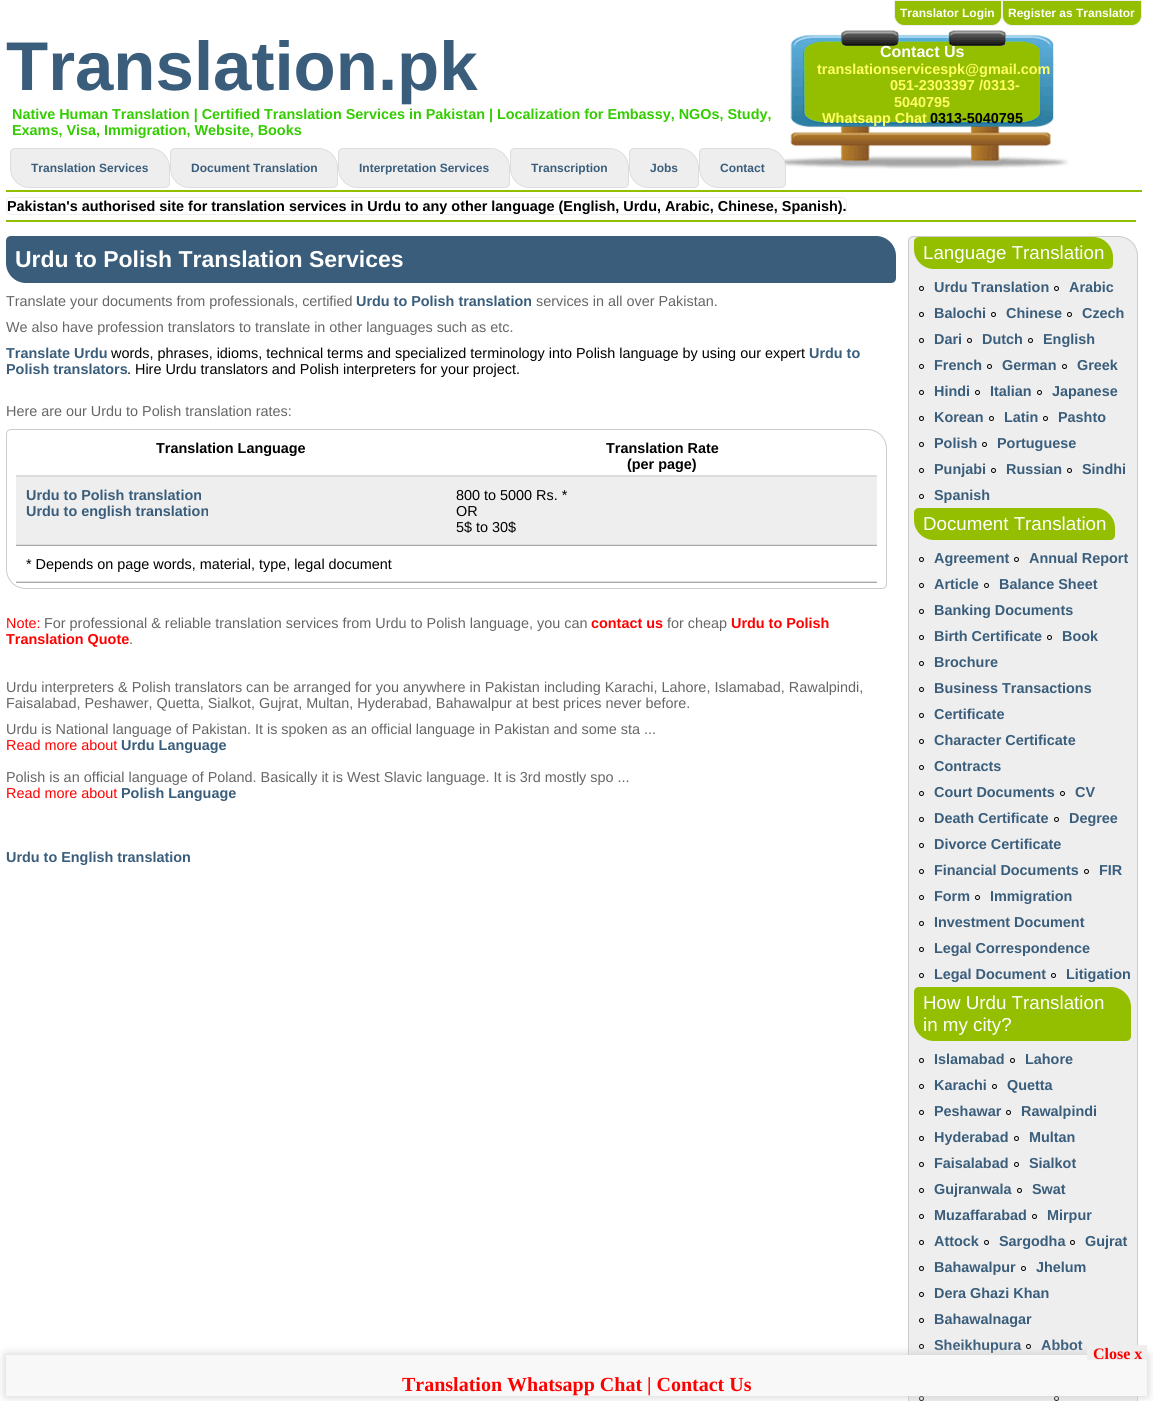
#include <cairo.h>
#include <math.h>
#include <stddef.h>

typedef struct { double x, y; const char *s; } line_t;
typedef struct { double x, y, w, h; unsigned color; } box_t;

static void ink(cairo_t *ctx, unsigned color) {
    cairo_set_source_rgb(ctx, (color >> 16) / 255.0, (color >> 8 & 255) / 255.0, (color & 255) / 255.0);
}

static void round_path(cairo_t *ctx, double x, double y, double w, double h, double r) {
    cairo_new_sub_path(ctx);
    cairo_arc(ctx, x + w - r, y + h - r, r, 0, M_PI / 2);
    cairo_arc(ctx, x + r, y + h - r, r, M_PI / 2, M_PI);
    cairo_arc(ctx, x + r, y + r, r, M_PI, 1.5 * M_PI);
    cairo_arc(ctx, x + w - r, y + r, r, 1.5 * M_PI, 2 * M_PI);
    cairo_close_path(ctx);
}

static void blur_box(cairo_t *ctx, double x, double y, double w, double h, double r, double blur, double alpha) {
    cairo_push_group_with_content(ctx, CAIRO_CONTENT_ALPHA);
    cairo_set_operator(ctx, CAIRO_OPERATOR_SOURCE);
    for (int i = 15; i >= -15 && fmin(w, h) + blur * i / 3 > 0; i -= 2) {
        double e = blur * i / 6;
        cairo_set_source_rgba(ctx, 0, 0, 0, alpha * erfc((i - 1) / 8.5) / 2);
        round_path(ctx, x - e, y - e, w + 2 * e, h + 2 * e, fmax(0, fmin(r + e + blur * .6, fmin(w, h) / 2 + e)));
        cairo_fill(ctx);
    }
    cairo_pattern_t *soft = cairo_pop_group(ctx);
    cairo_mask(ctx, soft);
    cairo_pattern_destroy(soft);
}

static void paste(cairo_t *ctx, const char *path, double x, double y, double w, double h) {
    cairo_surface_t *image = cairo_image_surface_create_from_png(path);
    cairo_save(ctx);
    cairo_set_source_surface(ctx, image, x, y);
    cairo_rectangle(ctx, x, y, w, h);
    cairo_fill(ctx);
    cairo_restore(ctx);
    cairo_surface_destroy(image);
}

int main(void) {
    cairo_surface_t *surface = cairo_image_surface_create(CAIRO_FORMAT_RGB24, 1153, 1401);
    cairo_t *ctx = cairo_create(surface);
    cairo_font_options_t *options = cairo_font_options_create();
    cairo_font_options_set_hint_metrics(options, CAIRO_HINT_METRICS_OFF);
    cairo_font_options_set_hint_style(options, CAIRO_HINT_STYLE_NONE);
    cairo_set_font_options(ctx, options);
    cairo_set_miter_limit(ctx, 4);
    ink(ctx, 0xFFFFFF);
    cairo_paint(ctx);
    paste(ctx, "media/1.png", 782, 30, 287, 139);
    ink(ctx, 0x94BE00);
    cairo_new_path(ctx);
    cairo_move_to(ctx, 894.5, 0.5);
    cairo_line_to(ctx, 1001.5, 0.5);
    cairo_line_to(ctx, 1001.5, 16);
    cairo_curve_to(ctx, 1001.5, 21, 997, 25.5, 992, 25.5);
    cairo_line_to(ctx, 904, 25.5);
    cairo_curve_to(ctx, 899, 25.5, 894.5, 21, 894.5, 16);
    cairo_close_path(ctx);
    cairo_fill_preserve(ctx);
    ink(ctx, 0xEEEEEE);
    cairo_set_line_width(ctx, 1);
    cairo_stroke(ctx);
    cairo_select_font_face(ctx, "Liberation Sans", CAIRO_FONT_SLANT_NORMAL, CAIRO_FONT_WEIGHT_BOLD);
    cairo_set_font_size(ctx, 12);
    ink(ctx, 0xFFFFFF);
    cairo_move_to(ctx, 900, 17);
    cairo_show_text(ctx, "Translator Login");
    ink(ctx, 0x94BE00);
    cairo_new_path(ctx);
    cairo_move_to(ctx, 1002.5, 0.5);
    cairo_line_to(ctx, 1141.5, 0.5);
    cairo_line_to(ctx, 1141.5, 16);
    cairo_curve_to(ctx, 1141.5, 21, 1137, 25.5, 1132, 25.5);
    cairo_line_to(ctx, 1012, 25.5);
    cairo_curve_to(ctx, 1007, 25.5, 1002.5, 21, 1002.5, 16);
    cairo_close_path(ctx);
    cairo_fill_preserve(ctx);
    ink(ctx, 0xEEEEEE);
    cairo_stroke(ctx);
    ink(ctx, 0xFFFFFF);
    cairo_move_to(ctx, 1008, 17);
    cairo_show_text(ctx, "Register as Translator");
    cairo_set_font_size(ctx, 69);
    ink(ctx, 0x395D7B);
    cairo_move_to(ctx, 6, 90);
    cairo_show_text(ctx, "Translation.pk");
    cairo_set_font_size(ctx, 16);
    ink(ctx, 0xFFFFFF);
    cairo_move_to(ctx, 880, 57);
    cairo_show_text(ctx, "Contact Us");
    cairo_set_font_size(ctx, 14.4);
    ink(ctx, 0xFFFF66);
    {
        static const line_t items[] = {
            {817, 74, "translationservicespk@gmail.com"},
            {890, 90, "051-2303397 /0313-"},
            {894, 107, "5040795"},
            {822, 123, "Whatsapp Chat"},
        };
        for (size_t i = 0; i < sizeof items / sizeof *items; i++) {
            cairo_move_to(ctx, items[i].x, items[i].y);
            cairo_show_text(ctx, items[i].s);
        }
    }
    ink(ctx, 0x000000);
    cairo_move_to(ctx, 930, 123);
    cairo_show_text(ctx, "0313-5040795");
    ink(ctx, 0x33CC00);
    cairo_move_to(ctx, 12, 119);
    cairo_show_text(ctx, "Native Human Translation | Certified Translation Services in Pakistan | Localization for Embassy, NGOs, Study,");
    cairo_move_to(ctx, 12, 135);
    cairo_show_text(ctx, "Exams, Visa, Immigration, Website, Books");
    ink(ctx, 0x94BE00);
    cairo_rectangle(ctx, 6, 190, 1136, 2);
    cairo_fill(ctx);
    ink(ctx, 0xEEEEEE);
    cairo_new_path(ctx);
    cairo_move_to(ctx, 15, 148.5);
    cairo_line_to(ctx, 150, 148.5);
    cairo_curve_to(ctx, 161, 148.5, 169.5, 157, 169.5, 168);
    cairo_line_to(ctx, 169.5, 183);
    cairo_curve_to(ctx, 169.5, 185.5, 167.5, 187.5, 165, 187.5);
    cairo_line_to(ctx, 30, 187.5);
    cairo_curve_to(ctx, 19, 187.5, 10.5, 179, 10.5, 168);
    cairo_line_to(ctx, 10.5, 153);
    cairo_curve_to(ctx, 10.5, 150.5, 12.5, 148.5, 15, 148.5);
    cairo_close_path(ctx);
    cairo_fill_preserve(ctx);
    ink(ctx, 0xDDDDDD);
    cairo_stroke(ctx);
    cairo_set_font_size(ctx, 12);
    ink(ctx, 0x395D7B);
    cairo_move_to(ctx, 31, 172);
    cairo_show_text(ctx, "Translation Services");
    ink(ctx, 0xEEEEEE);
    cairo_new_path(ctx);
    cairo_move_to(ctx, 175, 148.5);
    cairo_line_to(ctx, 318, 148.5);
    cairo_curve_to(ctx, 329, 148.5, 337.5, 157, 337.5, 168);
    cairo_line_to(ctx, 337.5, 183);
    cairo_curve_to(ctx, 337.5, 185.5, 335.5, 187.5, 333, 187.5);
    cairo_line_to(ctx, 190, 187.5);
    cairo_curve_to(ctx, 179, 187.5, 170.5, 179, 170.5, 168);
    cairo_line_to(ctx, 170.5, 153);
    cairo_curve_to(ctx, 170.5, 150.5, 172.5, 148.5, 175, 148.5);
    cairo_close_path(ctx);
    cairo_fill_preserve(ctx);
    ink(ctx, 0xDDDDDD);
    cairo_stroke(ctx);
    ink(ctx, 0x395D7B);
    cairo_move_to(ctx, 191, 172);
    cairo_show_text(ctx, "Document Translation");
    ink(ctx, 0xEEEEEE);
    cairo_new_path(ctx);
    cairo_move_to(ctx, 343, 148.5);
    cairo_line_to(ctx, 490, 148.5);
    cairo_curve_to(ctx, 501, 148.5, 509.5, 157, 509.5, 168);
    cairo_line_to(ctx, 509.5, 183);
    cairo_curve_to(ctx, 509.5, 185.5, 507.5, 187.5, 505, 187.5);
    cairo_line_to(ctx, 358, 187.5);
    cairo_curve_to(ctx, 347, 187.5, 338.5, 179, 338.5, 168);
    cairo_line_to(ctx, 338.5, 153);
    cairo_curve_to(ctx, 338.5, 150.5, 340.5, 148.5, 343, 148.5);
    cairo_close_path(ctx);
    cairo_fill_preserve(ctx);
    ink(ctx, 0xDDDDDD);
    cairo_stroke(ctx);
    ink(ctx, 0x395D7B);
    cairo_move_to(ctx, 359, 172);
    cairo_show_text(ctx, "Interpretation Services");
    ink(ctx, 0xEEEEEE);
    cairo_new_path(ctx);
    cairo_move_to(ctx, 515, 148.5);
    cairo_line_to(ctx, 609, 148.5);
    cairo_curve_to(ctx, 620, 148.5, 628.5, 157, 628.5, 168);
    cairo_line_to(ctx, 628.5, 183);
    cairo_curve_to(ctx, 628.5, 185.5, 626.5, 187.5, 624, 187.5);
    cairo_line_to(ctx, 530, 187.5);
    cairo_curve_to(ctx, 519, 187.5, 510.5, 179, 510.5, 168);
    cairo_line_to(ctx, 510.5, 153);
    cairo_curve_to(ctx, 510.5, 150.5, 512.5, 148.5, 515, 148.5);
    cairo_close_path(ctx);
    cairo_fill_preserve(ctx);
    ink(ctx, 0xDDDDDD);
    cairo_stroke(ctx);
    ink(ctx, 0x395D7B);
    cairo_move_to(ctx, 531, 172);
    cairo_show_text(ctx, "Transcription");
    ink(ctx, 0xEEEEEE);
    cairo_new_path(ctx);
    cairo_move_to(ctx, 634, 148.5);
    cairo_line_to(ctx, 679, 148.5);
    cairo_curve_to(ctx, 690, 148.5, 698.5, 157, 698.5, 168);
    cairo_line_to(ctx, 698.5, 183);
    cairo_curve_to(ctx, 698.5, 185.5, 696.5, 187.5, 694, 187.5);
    cairo_line_to(ctx, 649, 187.5);
    cairo_curve_to(ctx, 638, 187.5, 629.5, 179, 629.5, 168);
    cairo_line_to(ctx, 629.5, 153);
    cairo_curve_to(ctx, 629.5, 150.5, 631.5, 148.5, 634, 148.5);
    cairo_close_path(ctx);
    cairo_fill_preserve(ctx);
    ink(ctx, 0xDDDDDD);
    cairo_stroke(ctx);
    ink(ctx, 0x395D7B);
    cairo_move_to(ctx, 650, 172);
    cairo_show_text(ctx, "Jobs");
    ink(ctx, 0xEEEEEE);
    cairo_new_path(ctx);
    cairo_move_to(ctx, 704, 148.5);
    cairo_line_to(ctx, 766, 148.5);
    cairo_curve_to(ctx, 777, 148.5, 785.5, 157, 785.5, 168);
    cairo_line_to(ctx, 785.5, 183);
    cairo_curve_to(ctx, 785.5, 185.5, 783.5, 187.5, 781, 187.5);
    cairo_line_to(ctx, 719, 187.5);
    cairo_curve_to(ctx, 708, 187.5, 699.5, 179, 699.5, 168);
    cairo_line_to(ctx, 699.5, 153);
    cairo_curve_to(ctx, 699.5, 150.5, 701.5, 148.5, 704, 148.5);
    cairo_close_path(ctx);
    cairo_fill_preserve(ctx);
    ink(ctx, 0xDDDDDD);
    cairo_stroke(ctx);
    ink(ctx, 0x395D7B);
    cairo_move_to(ctx, 720, 172);
    cairo_show_text(ctx, "Contact");
    ink(ctx, 0x94BE00);
    cairo_rectangle(ctx, 6, 220, 1130, 2);
    cairo_fill(ctx);
    round_path(ctx, 6.5, 197.5, 840, 17, 4.5);
    ink(ctx, 0xEEEEEE);
    cairo_stroke(ctx);
    cairo_set_font_size(ctx, 14.4);
    ink(ctx, 0x000000);
    cairo_move_to(ctx, 7, 211);
    cairo_show_text(ctx, "Pakistan's authorised site for translation services in Urdu to any other language (English, Urdu, Arabic, Chinese, Spanish).");
    ink(ctx, 0x395D7B);
    cairo_new_path(ctx);
    cairo_move_to(ctx, 11, 236);
    cairo_line_to(ctx, 876, 236);
    cairo_curve_to(ctx, 887, 236, 896, 245, 896, 256);
    cairo_line_to(ctx, 896, 278);
    cairo_curve_to(ctx, 896, 281, 894, 283, 891, 283);
    cairo_line_to(ctx, 26, 283);
    cairo_curve_to(ctx, 15, 283, 6, 274, 6, 263);
    cairo_line_to(ctx, 6, 241);
    cairo_curve_to(ctx, 6, 238, 8, 236, 11, 236);
    cairo_close_path(ctx);
    cairo_fill(ctx);
    cairo_set_font_size(ctx, 23);
    ink(ctx, 0xFFFFFF);
    cairo_move_to(ctx, 15, 267);
    cairo_show_text(ctx, "Urdu to Polish Translation Services");
    cairo_select_font_face(ctx, "Liberation Sans", CAIRO_FONT_SLANT_NORMAL, CAIRO_FONT_WEIGHT_NORMAL);
    cairo_set_font_size(ctx, 14.4);
    ink(ctx, 0x666666);
    cairo_move_to(ctx, 6, 306);
    cairo_show_text(ctx, "Translate your documents from professionals, certified");
    cairo_select_font_face(ctx, "Liberation Sans", CAIRO_FONT_SLANT_NORMAL, CAIRO_FONT_WEIGHT_BOLD);
    ink(ctx, 0x395D7B);
    cairo_move_to(ctx, 356, 306);
    cairo_show_text(ctx, "Urdu to Polish translation");
    cairo_select_font_face(ctx, "Liberation Sans", CAIRO_FONT_SLANT_NORMAL, CAIRO_FONT_WEIGHT_NORMAL);
    ink(ctx, 0x666666);
    cairo_move_to(ctx, 536, 306);
    cairo_show_text(ctx, "services in all over Pakistan.");
    cairo_move_to(ctx, 6, 332);
    cairo_show_text(ctx, "We also have profession translators to translate in other languages such as etc.");
    cairo_select_font_face(ctx, "Liberation Sans", CAIRO_FONT_SLANT_NORMAL, CAIRO_FONT_WEIGHT_BOLD);
    ink(ctx, 0x395D7B);
    cairo_move_to(ctx, 6, 358);
    cairo_show_text(ctx, "Translate Urdu");
    cairo_select_font_face(ctx, "Liberation Sans", CAIRO_FONT_SLANT_NORMAL, CAIRO_FONT_WEIGHT_NORMAL);
    ink(ctx, 0x000000);
    cairo_move_to(ctx, 111, 358);
    cairo_show_text(ctx, "words, phrases, idioms, technical terms and specialized terminology into Polish language by using our expert");
    cairo_select_font_face(ctx, "Liberation Sans", CAIRO_FONT_SLANT_NORMAL, CAIRO_FONT_WEIGHT_BOLD);
    ink(ctx, 0x395D7B);
    cairo_move_to(ctx, 809, 358);
    cairo_show_text(ctx, "Urdu to");
    cairo_move_to(ctx, 6, 374);
    cairo_show_text(ctx, "Polish translators");
    cairo_select_font_face(ctx, "Liberation Sans", CAIRO_FONT_SLANT_NORMAL, CAIRO_FONT_WEIGHT_NORMAL);
    ink(ctx, 0x000000);
    cairo_move_to(ctx, 127, 374);
    cairo_show_text(ctx, ". Hire Urdu translators and Polish interpreters for your project.");
    ink(ctx, 0x666666);
    cairo_move_to(ctx, 6, 416);
    cairo_show_text(ctx, "Here are our Urdu to Polish translation rates:");
    cairo_new_path(ctx);
    cairo_move_to(ctx, 11, 429.5);
    cairo_line_to(ctx, 867, 429.5);
    cairo_curve_to(ctx, 878, 429.5, 886.5, 438, 886.5, 449);
    cairo_line_to(ctx, 886.5, 584);
    cairo_curve_to(ctx, 886.5, 586.5, 884.5, 588.5, 882, 588.5);
    cairo_line_to(ctx, 26, 588.5);
    cairo_curve_to(ctx, 15, 588.5, 6.5, 580, 6.5, 569);
    cairo_line_to(ctx, 6.5, 434);
    cairo_curve_to(ctx, 6.5, 431.5, 8.5, 429.5, 11, 429.5);
    cairo_close_path(ctx);
    ink(ctx, 0xCCCCCC);
    cairo_stroke(ctx);
    ink(ctx, 0xDDDDDD);
    cairo_rectangle(ctx, 16, 475, 861, 2);
    cairo_fill(ctx);
    cairo_select_font_face(ctx, "Liberation Sans", CAIRO_FONT_SLANT_NORMAL, CAIRO_FONT_WEIGHT_BOLD);
    ink(ctx, 0x000000);
    {
        static const line_t items[] = {
            {156, 453, "Translation Language"},
            {606, 453, "Translation Rate"},
            {627, 469, "(per page)"},
        };
        for (size_t i = 0; i < sizeof items / sizeof *items; i++) {
            cairo_move_to(ctx, items[i].x, items[i].y);
            cairo_show_text(ctx, items[i].s);
        }
    }
    {
        static const box_t items[] = {
            {16, 477, 861, 67, 0xEEEEEE},
            {16, 544, 861, 1, 0xDDDDDD},
            {16, 545, 861, 1, 0xAAAAAA},
        };
        for (size_t i = 0; i < sizeof items / sizeof *items; i++) {
            ink(ctx, items[i].color);
            cairo_rectangle(ctx, items[i].x, items[i].y, items[i].w, items[i].h);
            cairo_fill(ctx);
        }
    }
    ink(ctx, 0x395D7B);
    cairo_move_to(ctx, 26, 500);
    cairo_show_text(ctx, "Urdu to Polish translation");
    cairo_move_to(ctx, 26, 516);
    cairo_show_text(ctx, "Urdu to english translation");
    cairo_select_font_face(ctx, "Liberation Sans", CAIRO_FONT_SLANT_NORMAL, CAIRO_FONT_WEIGHT_NORMAL);
    ink(ctx, 0x000000);
    {
        static const line_t items[] = {
            {456, 500, "800 to 5000 Rs. *"},
            {456, 516, "OR"},
            {456, 532, "5$ to 30$"},
        };
        for (size_t i = 0; i < sizeof items / sizeof *items; i++) {
            cairo_move_to(ctx, items[i].x, items[i].y);
            cairo_show_text(ctx, items[i].s);
        }
    }
    ink(ctx, 0xDDDDDD);
    cairo_rectangle(ctx, 16, 581, 861, 1);
    cairo_fill(ctx);
    ink(ctx, 0xAAAAAA);
    cairo_rectangle(ctx, 16, 582, 861, 1);
    cairo_fill(ctx);
    ink(ctx, 0x000000);
    cairo_move_to(ctx, 26, 569);
    cairo_show_text(ctx, "* Depends on page words, material, type, legal document");
    ink(ctx, 0xFF0000);
    cairo_move_to(ctx, 6, 628);
    cairo_show_text(ctx, "Note:");
    ink(ctx, 0x666666);
    cairo_move_to(ctx, 44, 628);
    cairo_show_text(ctx, "For professional & reliable translation services from Urdu to Polish language, you can");
    cairo_select_font_face(ctx, "Liberation Sans", CAIRO_FONT_SLANT_NORMAL, CAIRO_FONT_WEIGHT_BOLD);
    ink(ctx, 0xFF0000);
    cairo_move_to(ctx, 591, 628);
    cairo_show_text(ctx, "contact us");
    cairo_select_font_face(ctx, "Liberation Sans", CAIRO_FONT_SLANT_NORMAL, CAIRO_FONT_WEIGHT_NORMAL);
    ink(ctx, 0x666666);
    cairo_move_to(ctx, 667, 628);
    cairo_show_text(ctx, "for cheap");
    cairo_select_font_face(ctx, "Liberation Sans", CAIRO_FONT_SLANT_NORMAL, CAIRO_FONT_WEIGHT_BOLD);
    ink(ctx, 0xFF0000);
    cairo_move_to(ctx, 731, 628);
    cairo_show_text(ctx, "Urdu to Polish");
    cairo_move_to(ctx, 6, 644);
    cairo_show_text(ctx, "Translation Quote");
    cairo_select_font_face(ctx, "Liberation Sans", CAIRO_FONT_SLANT_NORMAL, CAIRO_FONT_WEIGHT_NORMAL);
    ink(ctx, 0x666666);
    {
        static const line_t items[] = {
            {129, 644, "."},
            {6, 692, "Urdu interpreters & Polish translators can be arranged for you anywhere in Pakistan including Karachi, Lahore, Islamabad, Rawalpindi,"},
            {6, 708, "Faisalabad, Peshawer, Quetta, Sialkot, Gujrat, Multan, Hyderabad, Bahawalpur at best prices never before."},
            {6, 734, "Urdu is National language of Pakistan. It is spoken as an official language in Pakistan and some sta ..."},
        };
        for (size_t i = 0; i < sizeof items / sizeof *items; i++) {
            cairo_move_to(ctx, items[i].x, items[i].y);
            cairo_show_text(ctx, items[i].s);
        }
    }
    ink(ctx, 0xFF0000);
    cairo_move_to(ctx, 6, 750);
    cairo_show_text(ctx, "Read more about");
    cairo_select_font_face(ctx, "Liberation Sans", CAIRO_FONT_SLANT_NORMAL, CAIRO_FONT_WEIGHT_BOLD);
    ink(ctx, 0x395D7B);
    cairo_move_to(ctx, 121, 750);
    cairo_show_text(ctx, "Urdu Language");
    cairo_select_font_face(ctx, "Liberation Sans", CAIRO_FONT_SLANT_NORMAL, CAIRO_FONT_WEIGHT_NORMAL);
    ink(ctx, 0x666666);
    cairo_move_to(ctx, 6, 782);
    cairo_show_text(ctx, "Polish is an official language of Poland. Basically it is West Slavic language. It is 3rd mostly spo ...");
    ink(ctx, 0xFF0000);
    cairo_move_to(ctx, 6, 798);
    cairo_show_text(ctx, "Read more about");
    cairo_select_font_face(ctx, "Liberation Sans", CAIRO_FONT_SLANT_NORMAL, CAIRO_FONT_WEIGHT_BOLD);
    ink(ctx, 0x395D7B);
    cairo_move_to(ctx, 121, 798);
    cairo_show_text(ctx, "Polish Language");
    cairo_move_to(ctx, 6, 862);
    cairo_show_text(ctx, "Urdu to English translation");
    ink(ctx, 0xEEEEEE);
    cairo_new_path(ctx);
    cairo_move_to(ctx, 913, 236.5);
    cairo_line_to(ctx, 1118, 236.5);
    cairo_curve_to(ctx, 1129, 236.5, 1137.5, 245, 1137.5, 256);
    cairo_line_to(ctx, 1137.5, 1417);
    cairo_curve_to(ctx, 1137.5, 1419.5, 1135.5, 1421.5, 1133, 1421.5);
    cairo_line_to(ctx, 928, 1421.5);
    cairo_curve_to(ctx, 917, 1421.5, 908.5, 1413, 908.5, 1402);
    cairo_line_to(ctx, 908.5, 241);
    cairo_curve_to(ctx, 908.5, 238.5, 910.5, 236.5, 913, 236.5);
    cairo_close_path(ctx);
    cairo_fill_preserve(ctx);
    ink(ctx, 0xCCCCCC);
    cairo_stroke(ctx);
    ink(ctx, 0x94BE00);
    cairo_new_path(ctx);
    cairo_move_to(ctx, 919, 237);
    cairo_line_to(ctx, 1093, 237);
    cairo_curve_to(ctx, 1104, 237, 1113, 246, 1113, 257);
    cairo_line_to(ctx, 1113, 264);
    cairo_curve_to(ctx, 1113, 267, 1111, 269, 1108, 269);
    cairo_line_to(ctx, 934, 269);
    cairo_curve_to(ctx, 923, 269, 914, 260, 914, 249);
    cairo_line_to(ctx, 914, 242);
    cairo_curve_to(ctx, 914, 239, 916, 237, 919, 237);
    cairo_close_path(ctx);
    cairo_fill(ctx);
    cairo_select_font_face(ctx, "Liberation Sans", CAIRO_FONT_SLANT_NORMAL, CAIRO_FONT_WEIGHT_NORMAL);
    cairo_set_font_size(ctx, 18.75);
    ink(ctx, 0xFFFFFF);
    cairo_move_to(ctx, 923, 259);
    cairo_show_text(ctx, "Language Translation");
    cairo_new_path(ctx);
    cairo_arc(ctx, 921.5, 288.5, 2, 0, 2 * M_PI);
    ink(ctx, 0x000000);
    cairo_stroke(ctx);
    cairo_select_font_face(ctx, "Liberation Sans", CAIRO_FONT_SLANT_NORMAL, CAIRO_FONT_WEIGHT_BOLD);
    cairo_set_font_size(ctx, 14.4);
    ink(ctx, 0x395D7B);
    cairo_move_to(ctx, 934, 292);
    cairo_show_text(ctx, "Urdu Translation");
    cairo_new_path(ctx);
    cairo_arc(ctx, 1056.5, 288.5, 2, 0, 2 * M_PI);
    ink(ctx, 0x000000);
    cairo_stroke(ctx);
    ink(ctx, 0x395D7B);
    cairo_move_to(ctx, 1069, 292);
    cairo_show_text(ctx, "Arabic");
    cairo_new_path(ctx);
    cairo_arc(ctx, 921.5, 314.5, 2, 0, 2 * M_PI);
    ink(ctx, 0x000000);
    cairo_stroke(ctx);
    ink(ctx, 0x395D7B);
    cairo_move_to(ctx, 934, 318);
    cairo_show_text(ctx, "Balochi");
    cairo_new_path(ctx);
    cairo_arc(ctx, 993.5, 314.5, 2, 0, 2 * M_PI);
    ink(ctx, 0x000000);
    cairo_stroke(ctx);
    ink(ctx, 0x395D7B);
    cairo_move_to(ctx, 1006, 318);
    cairo_show_text(ctx, "Chinese");
    cairo_new_path(ctx);
    cairo_arc(ctx, 1069.5, 314.5, 2, 0, 2 * M_PI);
    ink(ctx, 0x000000);
    cairo_stroke(ctx);
    ink(ctx, 0x395D7B);
    cairo_move_to(ctx, 1082, 318);
    cairo_show_text(ctx, "Czech");
    cairo_new_path(ctx);
    cairo_arc(ctx, 921.5, 340.5, 2, 0, 2 * M_PI);
    ink(ctx, 0x000000);
    cairo_stroke(ctx);
    ink(ctx, 0x395D7B);
    cairo_move_to(ctx, 934, 344);
    cairo_show_text(ctx, "Dari");
    cairo_new_path(ctx);
    cairo_arc(ctx, 969.5, 340.5, 2, 0, 2 * M_PI);
    ink(ctx, 0x000000);
    cairo_stroke(ctx);
    ink(ctx, 0x395D7B);
    cairo_move_to(ctx, 982, 344);
    cairo_show_text(ctx, "Dutch");
    cairo_new_path(ctx);
    cairo_arc(ctx, 1030.5, 340.5, 2, 0, 2 * M_PI);
    ink(ctx, 0x000000);
    cairo_stroke(ctx);
    ink(ctx, 0x395D7B);
    cairo_move_to(ctx, 1043, 344);
    cairo_show_text(ctx, "English");
    cairo_new_path(ctx);
    cairo_arc(ctx, 921.5, 366.5, 2, 0, 2 * M_PI);
    ink(ctx, 0x000000);
    cairo_stroke(ctx);
    ink(ctx, 0x395D7B);
    cairo_move_to(ctx, 934, 370);
    cairo_show_text(ctx, "French");
    cairo_new_path(ctx);
    cairo_arc(ctx, 989.5, 366.5, 2, 0, 2 * M_PI);
    ink(ctx, 0x000000);
    cairo_stroke(ctx);
    ink(ctx, 0x395D7B);
    cairo_move_to(ctx, 1002, 370);
    cairo_show_text(ctx, "German");
    cairo_new_path(ctx);
    cairo_arc(ctx, 1064.5, 366.5, 2, 0, 2 * M_PI);
    ink(ctx, 0x000000);
    cairo_stroke(ctx);
    ink(ctx, 0x395D7B);
    cairo_move_to(ctx, 1077, 370);
    cairo_show_text(ctx, "Greek");
    cairo_new_path(ctx);
    cairo_arc(ctx, 921.5, 392.5, 2, 0, 2 * M_PI);
    ink(ctx, 0x000000);
    cairo_stroke(ctx);
    ink(ctx, 0x395D7B);
    cairo_move_to(ctx, 934, 396);
    cairo_show_text(ctx, "Hindi");
    cairo_new_path(ctx);
    cairo_arc(ctx, 977.5, 392.5, 2, 0, 2 * M_PI);
    ink(ctx, 0x000000);
    cairo_stroke(ctx);
    ink(ctx, 0x395D7B);
    cairo_move_to(ctx, 990, 396);
    cairo_show_text(ctx, "Italian");
    cairo_new_path(ctx);
    cairo_arc(ctx, 1039.5, 392.5, 2, 0, 2 * M_PI);
    ink(ctx, 0x000000);
    cairo_stroke(ctx);
    ink(ctx, 0x395D7B);
    cairo_move_to(ctx, 1052, 396);
    cairo_show_text(ctx, "Japanese");
    cairo_new_path(ctx);
    cairo_arc(ctx, 921.5, 418.5, 2, 0, 2 * M_PI);
    ink(ctx, 0x000000);
    cairo_stroke(ctx);
    ink(ctx, 0x395D7B);
    cairo_move_to(ctx, 934, 422);
    cairo_show_text(ctx, "Korean");
    cairo_new_path(ctx);
    cairo_arc(ctx, 991.5, 418.5, 2, 0, 2 * M_PI);
    ink(ctx, 0x000000);
    cairo_stroke(ctx);
    ink(ctx, 0x395D7B);
    cairo_move_to(ctx, 1004, 422);
    cairo_show_text(ctx, "Latin");
    cairo_new_path(ctx);
    cairo_arc(ctx, 1045.5, 418.5, 2, 0, 2 * M_PI);
    ink(ctx, 0x000000);
    cairo_stroke(ctx);
    ink(ctx, 0x395D7B);
    cairo_move_to(ctx, 1058, 422);
    cairo_show_text(ctx, "Pashto");
    cairo_new_path(ctx);
    cairo_arc(ctx, 921.5, 444.5, 2, 0, 2 * M_PI);
    ink(ctx, 0x000000);
    cairo_stroke(ctx);
    ink(ctx, 0x395D7B);
    cairo_move_to(ctx, 934, 448);
    cairo_show_text(ctx, "Polish");
    cairo_new_path(ctx);
    cairo_arc(ctx, 984.5, 444.5, 2, 0, 2 * M_PI);
    ink(ctx, 0x000000);
    cairo_stroke(ctx);
    ink(ctx, 0x395D7B);
    cairo_move_to(ctx, 997, 448);
    cairo_show_text(ctx, "Portuguese");
    cairo_new_path(ctx);
    cairo_arc(ctx, 921.5, 470.5, 2, 0, 2 * M_PI);
    ink(ctx, 0x000000);
    cairo_stroke(ctx);
    ink(ctx, 0x395D7B);
    cairo_move_to(ctx, 934, 474);
    cairo_show_text(ctx, "Punjabi");
    cairo_new_path(ctx);
    cairo_arc(ctx, 993.5, 470.5, 2, 0, 2 * M_PI);
    ink(ctx, 0x000000);
    cairo_stroke(ctx);
    ink(ctx, 0x395D7B);
    cairo_move_to(ctx, 1006, 474);
    cairo_show_text(ctx, "Russian");
    cairo_new_path(ctx);
    cairo_arc(ctx, 1069.5, 470.5, 2, 0, 2 * M_PI);
    ink(ctx, 0x000000);
    cairo_stroke(ctx);
    ink(ctx, 0x395D7B);
    cairo_move_to(ctx, 1082, 474);
    cairo_show_text(ctx, "Sindhi");
    cairo_new_path(ctx);
    cairo_arc(ctx, 921.5, 496.5, 2, 0, 2 * M_PI);
    ink(ctx, 0x000000);
    cairo_stroke(ctx);
    ink(ctx, 0x395D7B);
    cairo_move_to(ctx, 934, 500);
    cairo_show_text(ctx, "Spanish");
    ink(ctx, 0x94BE00);
    cairo_new_path(ctx);
    cairo_move_to(ctx, 919, 508);
    cairo_line_to(ctx, 1095, 508);
    cairo_curve_to(ctx, 1106, 508, 1115, 517, 1115, 528);
    cairo_line_to(ctx, 1115, 535);
    cairo_curve_to(ctx, 1115, 538, 1113, 540, 1110, 540);
    cairo_line_to(ctx, 934, 540);
    cairo_curve_to(ctx, 923, 540, 914, 531, 914, 520);
    cairo_line_to(ctx, 914, 513);
    cairo_curve_to(ctx, 914, 510, 916, 508, 919, 508);
    cairo_close_path(ctx);
    cairo_fill(ctx);
    cairo_select_font_face(ctx, "Liberation Sans", CAIRO_FONT_SLANT_NORMAL, CAIRO_FONT_WEIGHT_NORMAL);
    cairo_set_font_size(ctx, 18.75);
    ink(ctx, 0xFFFFFF);
    cairo_move_to(ctx, 923, 530);
    cairo_show_text(ctx, "Document Translation");
    cairo_new_path(ctx);
    cairo_arc(ctx, 921.5, 559.5, 2, 0, 2 * M_PI);
    ink(ctx, 0x000000);
    cairo_stroke(ctx);
    cairo_select_font_face(ctx, "Liberation Sans", CAIRO_FONT_SLANT_NORMAL, CAIRO_FONT_WEIGHT_BOLD);
    cairo_set_font_size(ctx, 14.4);
    ink(ctx, 0x395D7B);
    cairo_move_to(ctx, 934, 563);
    cairo_show_text(ctx, "Agreement");
    cairo_new_path(ctx);
    cairo_arc(ctx, 1016.5, 559.5, 2, 0, 2 * M_PI);
    ink(ctx, 0x000000);
    cairo_stroke(ctx);
    ink(ctx, 0x395D7B);
    cairo_move_to(ctx, 1029, 563);
    cairo_show_text(ctx, "Annual Report");
    cairo_new_path(ctx);
    cairo_arc(ctx, 921.5, 585.5, 2, 0, 2 * M_PI);
    ink(ctx, 0x000000);
    cairo_stroke(ctx);
    ink(ctx, 0x395D7B);
    cairo_move_to(ctx, 934, 589);
    cairo_show_text(ctx, "Article");
    cairo_new_path(ctx);
    cairo_arc(ctx, 986.5, 585.5, 2, 0, 2 * M_PI);
    ink(ctx, 0x000000);
    cairo_stroke(ctx);
    ink(ctx, 0x395D7B);
    cairo_move_to(ctx, 999, 589);
    cairo_show_text(ctx, "Balance Sheet");
    cairo_new_path(ctx);
    cairo_arc(ctx, 921.5, 611.5, 2, 0, 2 * M_PI);
    ink(ctx, 0x000000);
    cairo_stroke(ctx);
    ink(ctx, 0x395D7B);
    cairo_move_to(ctx, 934, 615);
    cairo_show_text(ctx, "Banking Documents");
    cairo_new_path(ctx);
    cairo_arc(ctx, 921.5, 637.5, 2, 0, 2 * M_PI);
    ink(ctx, 0x000000);
    cairo_stroke(ctx);
    ink(ctx, 0x395D7B);
    cairo_move_to(ctx, 934, 641);
    cairo_show_text(ctx, "Birth Certificate");
    cairo_new_path(ctx);
    cairo_arc(ctx, 1049.5, 637.5, 2, 0, 2 * M_PI);
    ink(ctx, 0x000000);
    cairo_stroke(ctx);
    ink(ctx, 0x395D7B);
    cairo_move_to(ctx, 1062, 641);
    cairo_show_text(ctx, "Book");
    cairo_new_path(ctx);
    cairo_arc(ctx, 921.5, 663.5, 2, 0, 2 * M_PI);
    ink(ctx, 0x000000);
    cairo_stroke(ctx);
    ink(ctx, 0x395D7B);
    cairo_move_to(ctx, 934, 667);
    cairo_show_text(ctx, "Brochure");
    cairo_new_path(ctx);
    cairo_arc(ctx, 921.5, 689.5, 2, 0, 2 * M_PI);
    ink(ctx, 0x000000);
    cairo_stroke(ctx);
    ink(ctx, 0x395D7B);
    cairo_move_to(ctx, 934, 693);
    cairo_show_text(ctx, "Business Transactions");
    cairo_new_path(ctx);
    cairo_arc(ctx, 921.5, 715.5, 2, 0, 2 * M_PI);
    ink(ctx, 0x000000);
    cairo_stroke(ctx);
    ink(ctx, 0x395D7B);
    cairo_move_to(ctx, 934, 719);
    cairo_show_text(ctx, "Certificate");
    cairo_new_path(ctx);
    cairo_arc(ctx, 921.5, 741.5, 2, 0, 2 * M_PI);
    ink(ctx, 0x000000);
    cairo_stroke(ctx);
    ink(ctx, 0x395D7B);
    cairo_move_to(ctx, 934, 745);
    cairo_show_text(ctx, "Character Certificate");
    cairo_new_path(ctx);
    cairo_arc(ctx, 921.5, 767.5, 2, 0, 2 * M_PI);
    ink(ctx, 0x000000);
    cairo_stroke(ctx);
    ink(ctx, 0x395D7B);
    cairo_move_to(ctx, 934, 771);
    cairo_show_text(ctx, "Contracts");
    cairo_new_path(ctx);
    cairo_arc(ctx, 921.5, 793.5, 2, 0, 2 * M_PI);
    ink(ctx, 0x000000);
    cairo_stroke(ctx);
    ink(ctx, 0x395D7B);
    cairo_move_to(ctx, 934, 797);
    cairo_show_text(ctx, "Court Documents");
    cairo_new_path(ctx);
    cairo_arc(ctx, 1062.5, 793.5, 2, 0, 2 * M_PI);
    ink(ctx, 0x000000);
    cairo_stroke(ctx);
    ink(ctx, 0x395D7B);
    cairo_move_to(ctx, 1075, 797);
    cairo_show_text(ctx, "CV");
    cairo_new_path(ctx);
    cairo_arc(ctx, 921.5, 819.5, 2, 0, 2 * M_PI);
    ink(ctx, 0x000000);
    cairo_stroke(ctx);
    ink(ctx, 0x395D7B);
    cairo_move_to(ctx, 934, 823);
    cairo_show_text(ctx, "Death Certificate");
    cairo_new_path(ctx);
    cairo_arc(ctx, 1056.5, 819.5, 2, 0, 2 * M_PI);
    ink(ctx, 0x000000);
    cairo_stroke(ctx);
    ink(ctx, 0x395D7B);
    cairo_move_to(ctx, 1069, 823);
    cairo_show_text(ctx, "Degree");
    cairo_new_path(ctx);
    cairo_arc(ctx, 921.5, 845.5, 2, 0, 2 * M_PI);
    ink(ctx, 0x000000);
    cairo_stroke(ctx);
    ink(ctx, 0x395D7B);
    cairo_move_to(ctx, 934, 849);
    cairo_show_text(ctx, "Divorce Certificate");
    cairo_new_path(ctx);
    cairo_arc(ctx, 921.5, 871.5, 2, 0, 2 * M_PI);
    ink(ctx, 0x000000);
    cairo_stroke(ctx);
    ink(ctx, 0x395D7B);
    cairo_move_to(ctx, 934, 875);
    cairo_show_text(ctx, "Financial Documents");
    cairo_new_path(ctx);
    cairo_arc(ctx, 1086.5, 871.5, 2, 0, 2 * M_PI);
    ink(ctx, 0x000000);
    cairo_stroke(ctx);
    ink(ctx, 0x395D7B);
    cairo_move_to(ctx, 1099, 875);
    cairo_show_text(ctx, "FIR");
    cairo_new_path(ctx);
    cairo_arc(ctx, 921.5, 897.5, 2, 0, 2 * M_PI);
    ink(ctx, 0x000000);
    cairo_stroke(ctx);
    ink(ctx, 0x395D7B);
    cairo_move_to(ctx, 934, 901);
    cairo_show_text(ctx, "Form");
    cairo_new_path(ctx);
    cairo_arc(ctx, 977.5, 897.5, 2, 0, 2 * M_PI);
    ink(ctx, 0x000000);
    cairo_stroke(ctx);
    ink(ctx, 0x395D7B);
    cairo_move_to(ctx, 990, 901);
    cairo_show_text(ctx, "Immigration");
    cairo_new_path(ctx);
    cairo_arc(ctx, 921.5, 923.5, 2, 0, 2 * M_PI);
    ink(ctx, 0x000000);
    cairo_stroke(ctx);
    ink(ctx, 0x395D7B);
    cairo_move_to(ctx, 934, 927);
    cairo_show_text(ctx, "Investment Document");
    cairo_new_path(ctx);
    cairo_arc(ctx, 921.5, 949.5, 2, 0, 2 * M_PI);
    ink(ctx, 0x000000);
    cairo_stroke(ctx);
    ink(ctx, 0x395D7B);
    cairo_move_to(ctx, 934, 953);
    cairo_show_text(ctx, "Legal Correspondence");
    cairo_new_path(ctx);
    cairo_arc(ctx, 921.5, 975.5, 2, 0, 2 * M_PI);
    ink(ctx, 0x000000);
    cairo_stroke(ctx);
    ink(ctx, 0x395D7B);
    cairo_move_to(ctx, 934, 979);
    cairo_show_text(ctx, "Legal Document");
    cairo_new_path(ctx);
    cairo_arc(ctx, 1053.5, 975.5, 2, 0, 2 * M_PI);
    ink(ctx, 0x000000);
    cairo_stroke(ctx);
    ink(ctx, 0x395D7B);
    cairo_move_to(ctx, 1066, 979);
    cairo_show_text(ctx, "Litigation");
    ink(ctx, 0x94BE00);
    cairo_new_path(ctx);
    cairo_move_to(ctx, 919, 987);
    cairo_line_to(ctx, 1111, 987);
    cairo_curve_to(ctx, 1122, 987, 1131, 996, 1131, 1007);
    cairo_line_to(ctx, 1131, 1036);
    cairo_curve_to(ctx, 1131, 1039, 1129, 1041, 1126, 1041);
    cairo_line_to(ctx, 934, 1041);
    cairo_curve_to(ctx, 923, 1041, 914, 1032, 914, 1021);
    cairo_line_to(ctx, 914, 992);
    cairo_curve_to(ctx, 914, 989, 916, 987, 919, 987);
    cairo_close_path(ctx);
    cairo_fill(ctx);
    cairo_select_font_face(ctx, "Liberation Sans", CAIRO_FONT_SLANT_NORMAL, CAIRO_FONT_WEIGHT_NORMAL);
    cairo_set_font_size(ctx, 18.75);
    ink(ctx, 0xFFFFFF);
    cairo_move_to(ctx, 923, 1009);
    cairo_show_text(ctx, "How Urdu Translation");
    cairo_move_to(ctx, 923, 1031);
    cairo_show_text(ctx, "in my city?");
    cairo_new_path(ctx);
    cairo_arc(ctx, 921.5, 1060.5, 2, 0, 2 * M_PI);
    ink(ctx, 0x000000);
    cairo_stroke(ctx);
    cairo_select_font_face(ctx, "Liberation Sans", CAIRO_FONT_SLANT_NORMAL, CAIRO_FONT_WEIGHT_BOLD);
    cairo_set_font_size(ctx, 14.4);
    ink(ctx, 0x395D7B);
    cairo_move_to(ctx, 934, 1064);
    cairo_show_text(ctx, "Islamabad");
    cairo_new_path(ctx);
    cairo_arc(ctx, 1012.5, 1060.5, 2, 0, 2 * M_PI);
    ink(ctx, 0x000000);
    cairo_stroke(ctx);
    ink(ctx, 0x395D7B);
    cairo_move_to(ctx, 1025, 1064);
    cairo_show_text(ctx, "Lahore");
    cairo_new_path(ctx);
    cairo_arc(ctx, 921.5, 1086.5, 2, 0, 2 * M_PI);
    ink(ctx, 0x000000);
    cairo_stroke(ctx);
    ink(ctx, 0x395D7B);
    cairo_move_to(ctx, 934, 1090);
    cairo_show_text(ctx, "Karachi");
    cairo_new_path(ctx);
    cairo_arc(ctx, 994.5, 1086.5, 2, 0, 2 * M_PI);
    ink(ctx, 0x000000);
    cairo_stroke(ctx);
    ink(ctx, 0x395D7B);
    cairo_move_to(ctx, 1007, 1090);
    cairo_show_text(ctx, "Quetta");
    cairo_new_path(ctx);
    cairo_arc(ctx, 921.5, 1112.5, 2, 0, 2 * M_PI);
    ink(ctx, 0x000000);
    cairo_stroke(ctx);
    ink(ctx, 0x395D7B);
    cairo_move_to(ctx, 934, 1116);
    cairo_show_text(ctx, "Peshawar");
    cairo_new_path(ctx);
    cairo_arc(ctx, 1008.5, 1112.5, 2, 0, 2 * M_PI);
    ink(ctx, 0x000000);
    cairo_stroke(ctx);
    ink(ctx, 0x395D7B);
    cairo_move_to(ctx, 1021, 1116);
    cairo_show_text(ctx, "Rawalpindi");
    cairo_new_path(ctx);
    cairo_arc(ctx, 921.5, 1138.5, 2, 0, 2 * M_PI);
    ink(ctx, 0x000000);
    cairo_stroke(ctx);
    ink(ctx, 0x395D7B);
    cairo_move_to(ctx, 934, 1142);
    cairo_show_text(ctx, "Hyderabad");
    cairo_new_path(ctx);
    cairo_arc(ctx, 1016.5, 1138.5, 2, 0, 2 * M_PI);
    ink(ctx, 0x000000);
    cairo_stroke(ctx);
    ink(ctx, 0x395D7B);
    cairo_move_to(ctx, 1029, 1142);
    cairo_show_text(ctx, "Multan");
    cairo_new_path(ctx);
    cairo_arc(ctx, 921.5, 1164.5, 2, 0, 2 * M_PI);
    ink(ctx, 0x000000);
    cairo_stroke(ctx);
    ink(ctx, 0x395D7B);
    cairo_move_to(ctx, 934, 1168);
    cairo_show_text(ctx, "Faisalabad");
    cairo_new_path(ctx);
    cairo_arc(ctx, 1016.5, 1164.5, 2, 0, 2 * M_PI);
    ink(ctx, 0x000000);
    cairo_stroke(ctx);
    ink(ctx, 0x395D7B);
    cairo_move_to(ctx, 1029, 1168);
    cairo_show_text(ctx, "Sialkot");
    cairo_new_path(ctx);
    cairo_arc(ctx, 921.5, 1190.5, 2, 0, 2 * M_PI);
    ink(ctx, 0x000000);
    cairo_stroke(ctx);
    ink(ctx, 0x395D7B);
    cairo_move_to(ctx, 934, 1194);
    cairo_show_text(ctx, "Gujranwala");
    cairo_new_path(ctx);
    cairo_arc(ctx, 1019.5, 1190.5, 2, 0, 2 * M_PI);
    ink(ctx, 0x000000);
    cairo_stroke(ctx);
    ink(ctx, 0x395D7B);
    cairo_move_to(ctx, 1032, 1194);
    cairo_show_text(ctx, "Swat");
    cairo_new_path(ctx);
    cairo_arc(ctx, 921.5, 1216.5, 2, 0, 2 * M_PI);
    ink(ctx, 0x000000);
    cairo_stroke(ctx);
    ink(ctx, 0x395D7B);
    cairo_move_to(ctx, 934, 1220);
    cairo_show_text(ctx, "Muzaffarabad");
    cairo_new_path(ctx);
    cairo_arc(ctx, 1034.5, 1216.5, 2, 0, 2 * M_PI);
    ink(ctx, 0x000000);
    cairo_stroke(ctx);
    ink(ctx, 0x395D7B);
    cairo_move_to(ctx, 1047, 1220);
    cairo_show_text(ctx, "Mirpur");
    cairo_new_path(ctx);
    cairo_arc(ctx, 921.5, 1242.5, 2, 0, 2 * M_PI);
    ink(ctx, 0x000000);
    cairo_stroke(ctx);
    ink(ctx, 0x395D7B);
    cairo_move_to(ctx, 934, 1246);
    cairo_show_text(ctx, "Attock");
    cairo_new_path(ctx);
    cairo_arc(ctx, 986.5, 1242.5, 2, 0, 2 * M_PI);
    ink(ctx, 0x000000);
    cairo_stroke(ctx);
    ink(ctx, 0x395D7B);
    cairo_move_to(ctx, 999, 1246);
    cairo_show_text(ctx, "Sargodha");
    cairo_new_path(ctx);
    cairo_arc(ctx, 1072.5, 1242.5, 2, 0, 2 * M_PI);
    ink(ctx, 0x000000);
    cairo_stroke(ctx);
    ink(ctx, 0x395D7B);
    cairo_move_to(ctx, 1085, 1246);
    cairo_show_text(ctx, "Gujrat");
    cairo_new_path(ctx);
    cairo_arc(ctx, 921.5, 1268.5, 2, 0, 2 * M_PI);
    ink(ctx, 0x000000);
    cairo_stroke(ctx);
    ink(ctx, 0x395D7B);
    cairo_move_to(ctx, 934, 1272);
    cairo_show_text(ctx, "Bahawalpur");
    cairo_new_path(ctx);
    cairo_arc(ctx, 1023.5, 1268.5, 2, 0, 2 * M_PI);
    ink(ctx, 0x000000);
    cairo_stroke(ctx);
    ink(ctx, 0x395D7B);
    cairo_move_to(ctx, 1036, 1272);
    cairo_show_text(ctx, "Jhelum");
    cairo_new_path(ctx);
    cairo_arc(ctx, 921.5, 1294.5, 2, 0, 2 * M_PI);
    ink(ctx, 0x000000);
    cairo_stroke(ctx);
    ink(ctx, 0x395D7B);
    cairo_move_to(ctx, 934, 1298);
    cairo_show_text(ctx, "Dera Ghazi Khan");
    cairo_new_path(ctx);
    cairo_arc(ctx, 921.5, 1320.5, 2, 0, 2 * M_PI);
    ink(ctx, 0x000000);
    cairo_stroke(ctx);
    ink(ctx, 0x395D7B);
    cairo_move_to(ctx, 934, 1324);
    cairo_show_text(ctx, "Bahawalnagar");
    cairo_new_path(ctx);
    cairo_arc(ctx, 921.5, 1346.5, 2, 0, 2 * M_PI);
    ink(ctx, 0x000000);
    cairo_stroke(ctx);
    ink(ctx, 0x395D7B);
    cairo_move_to(ctx, 934, 1350);
    cairo_show_text(ctx, "Sheikhupura");
    cairo_new_path(ctx);
    cairo_arc(ctx, 1028.5, 1346.5, 2, 0, 2 * M_PI);
    ink(ctx, 0x000000);
    cairo_stroke(ctx);
    ink(ctx, 0x395D7B);
    cairo_move_to(ctx, 1041, 1350);
    cairo_show_text(ctx, "Abbot");
    cairo_new_path(ctx);
    cairo_arc(ctx, 921.5, 1398.5, 2, 0, 2 * M_PI);
    ink(ctx, 0x000000);
    cairo_stroke(ctx);
    cairo_arc(ctx, 1056.5, 1398.5, 2, 0, 2 * M_PI);
    cairo_stroke(ctx);
    ink(ctx, 0xCCCCCC);
    blur_box(ctx, 6, 1355, 1141, 41, 0, 5, 1);
    ink(ctx, 0xF8F8F8);
    cairo_rectangle(ctx, 6, 1355, 1141, 41);
    cairo_fill(ctx);
    ink(ctx, 0xEEEEEE);
    cairo_rectangle(ctx, 1087, 1345, 60, 15);
    cairo_fill(ctx);
    cairo_select_font_face(ctx, "Liberation Serif", CAIRO_FONT_SLANT_NORMAL, CAIRO_FONT_WEIGHT_BOLD);
    cairo_set_font_size(ctx, 16);
    ink(ctx, 0xFF0000);
    cairo_move_to(ctx, 1093, 1359);
    cairo_show_text(ctx, "Close x");
    cairo_set_font_size(ctx, 20);
    cairo_move_to(ctx, 402, 1391);
    cairo_show_text(ctx, "Translation Whatsapp Chat | Contact Us");
    cairo_surface_write_to_png(surface, "image.png");
    cairo_font_options_destroy(options);
    cairo_destroy(ctx);
    cairo_surface_destroy(surface);
    return 0;
}
